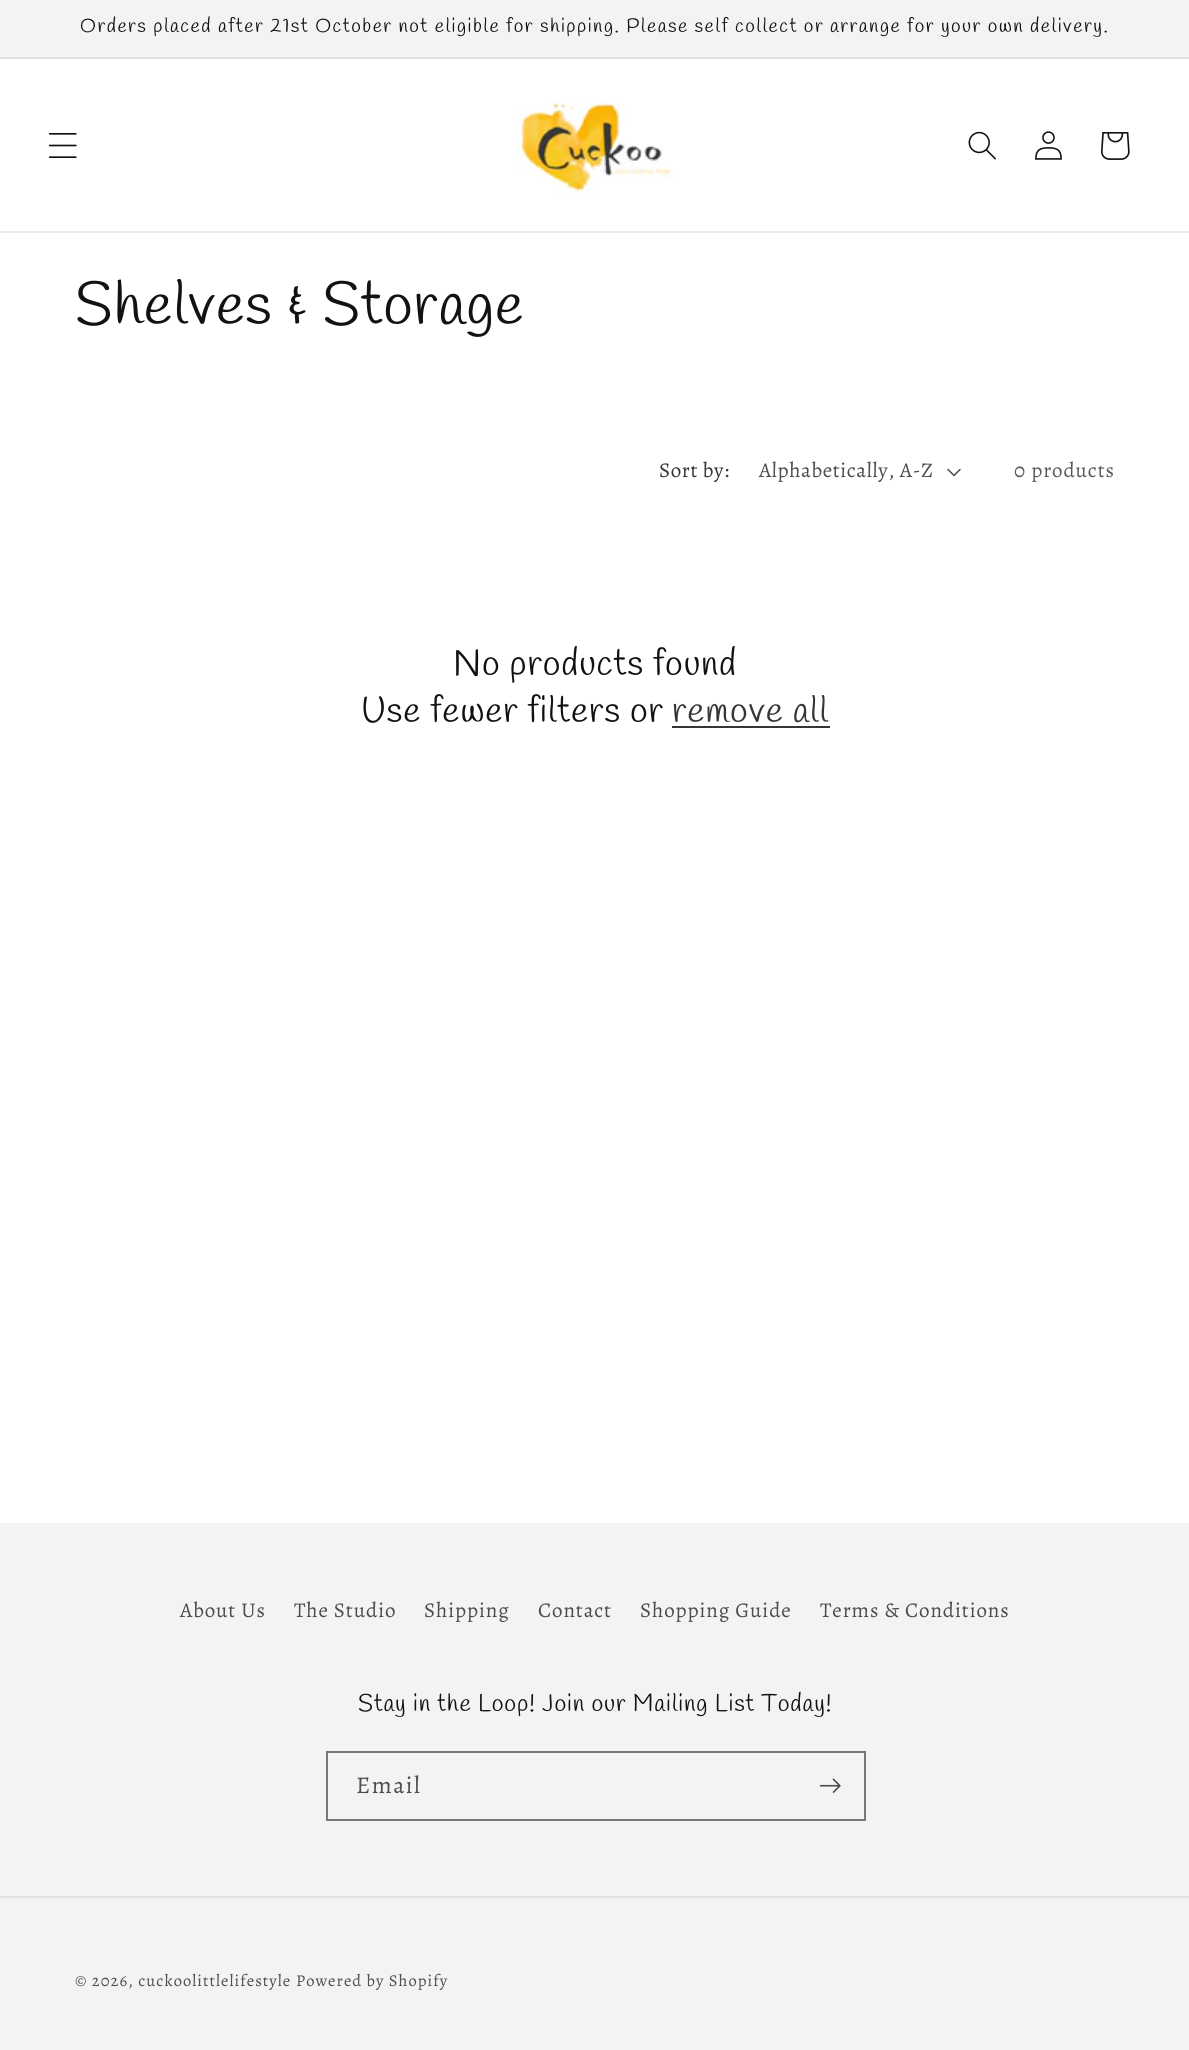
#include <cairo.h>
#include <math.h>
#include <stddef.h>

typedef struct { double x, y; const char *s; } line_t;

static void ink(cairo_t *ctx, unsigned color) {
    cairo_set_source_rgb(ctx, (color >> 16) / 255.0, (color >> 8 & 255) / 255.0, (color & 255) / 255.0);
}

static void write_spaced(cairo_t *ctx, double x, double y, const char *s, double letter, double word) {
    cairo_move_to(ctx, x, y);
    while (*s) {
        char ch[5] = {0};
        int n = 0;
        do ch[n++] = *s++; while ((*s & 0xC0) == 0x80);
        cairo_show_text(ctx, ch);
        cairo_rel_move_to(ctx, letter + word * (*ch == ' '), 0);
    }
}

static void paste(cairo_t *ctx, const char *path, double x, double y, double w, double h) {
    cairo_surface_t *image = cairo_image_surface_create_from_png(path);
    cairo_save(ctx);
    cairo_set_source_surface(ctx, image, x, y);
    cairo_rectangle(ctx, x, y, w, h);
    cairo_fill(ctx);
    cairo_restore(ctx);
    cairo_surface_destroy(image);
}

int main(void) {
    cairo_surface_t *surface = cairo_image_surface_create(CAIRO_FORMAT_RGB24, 1189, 2050);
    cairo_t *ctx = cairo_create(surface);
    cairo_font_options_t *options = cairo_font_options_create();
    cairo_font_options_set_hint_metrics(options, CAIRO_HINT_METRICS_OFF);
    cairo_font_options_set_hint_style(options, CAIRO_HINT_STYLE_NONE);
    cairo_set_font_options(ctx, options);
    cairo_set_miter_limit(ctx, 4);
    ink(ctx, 0xFFFFFF);
    cairo_paint(ctx);
    ink(ctx, 0xF3F3F3);
    cairo_rectangle(ctx, 0, 0, 1189, 57);
    cairo_fill(ctx);
    ink(ctx, 0xE1E1E1);
    cairo_rectangle(ctx, 0, 57, 1189, 2);
    cairo_fill(ctx);
    cairo_select_font_face(ctx, "Handlee", CAIRO_FONT_SLANT_NORMAL, CAIRO_FONT_WEIGHT_NORMAL);
    cairo_set_font_size(ctx, 19.5);
    ink(ctx, 0x121212);
    write_spaced(ctx, 80, 32, "Orders placed after 21st October not eligible for shipping. Please self collect or arrange for your own delivery.", 1.5, 0);
    ink(ctx, 0xECECEC);
    cairo_rectangle(ctx, 0, 231, 1189, 2);
    cairo_fill(ctx);
    paste(ctx, "media/1.png", 48, 133, 29, 25);
    paste(ctx, "media/2.png", 518, 98, 156, 95);
    paste(ctx, "media/3.png", 968, 131, 28, 29);
    paste(ctx, "media/4.png", 1035, 131, 27, 29);
    paste(ctx, "media/5.png", 1101, 132, 29, 28);
    cairo_set_font_size(ctx, 60);
    ink(ctx, 0x121212);
    write_spaced(ctx, 75, 324, "Shelves & Storage", 0.9, 0);
    cairo_select_font_face(ctx, "Alegreya", CAIRO_FONT_SLANT_NORMAL, CAIRO_FONT_WEIGHT_NORMAL);
    cairo_set_font_size(ctx, 21);
    ink(ctx, 0x363636);
    write_spaced(ctx, 659, 477, "Sort by:", 0.6, 0);
    ink(ctx, 0x4D4D4D);
    write_spaced(ctx, 759, 477, "Alphabetically, A-Z", 0.6, 0);
    paste(ctx, "media/6.png", 947, 468, 14, 9);
    ink(ctx, 0x595959);
    write_spaced(ctx, 1014, 477, "0 products", 0.9, 0);
    cairo_select_font_face(ctx, "Handlee", CAIRO_FONT_SLANT_NORMAL, CAIRO_FONT_WEIGHT_NORMAL);
    cairo_set_font_size(ctx, 36);
    ink(ctx, 0x121212);
    write_spaced(ctx, 453, 675, "No products found", 0.9, 0);
    write_spaced(ctx, 361, 722, "Use fewer filters or", 0.9, 0);
    ink(ctx, 0x363636);
    write_spaced(ctx, 672, 722, "remove all", 0.9, 0);
    cairo_rectangle(ctx, 672, 726, 158, 2);
    cairo_fill(ctx);
    ink(ctx, 0xF3F3F3);
    cairo_rectangle(ctx, 0, 1523, 1189, 527);
    cairo_fill(ctx);
    cairo_select_font_face(ctx, "Alegreya", CAIRO_FONT_SLANT_NORMAL, CAIRO_FONT_WEIGHT_NORMAL);
    cairo_set_font_size(ctx, 21);
    ink(ctx, 0x4D4D4D);
    {
        static const line_t items[] = {
            {180, 1617, "About Us"},
            {294, 1617, "The Studio"},
            {424, 1617, "Shipping"},
            {538, 1617, "Contact"},
            {640, 1617, "Shopping Guide"},
            {820, 1617, "Terms & Conditions"},
        };
        for (size_t i = 0; i < sizeof items / sizeof *items; i++) {
            write_spaced(ctx, items[i].x, items[i].y, items[i].s, 0.9, 0);
        }
    }
    cairo_select_font_face(ctx, "Handlee", CAIRO_FONT_SLANT_NORMAL, CAIRO_FONT_WEIGHT_NORMAL);
    cairo_set_font_size(ctx, 24);
    ink(ctx, 0x121212);
    write_spaced(ctx, 358, 1711, "Stay in the Loop! Join our Mailing List Today!", 0.9, 0);
    cairo_rectangle(ctx, 327, 1752, 538, 68);
    ink(ctx, 0x777777);
    cairo_stroke(ctx);
    cairo_select_font_face(ctx, "Alegreya", CAIRO_FONT_SLANT_NORMAL, CAIRO_FONT_WEIGHT_NORMAL);
    ink(ctx, 0x4D4D4D);
    write_spaced(ctx, 356, 1793, "Email", 1.5, 0);
    paste(ctx, "media/7.png", 819, 1778, 22, 15);
    ink(ctx, 0xE1E1E1);
    cairo_rectangle(ctx, 0, 1896, 1189, 2);
    cairo_fill(ctx);
    cairo_set_font_size(ctx, 16.5);
    ink(ctx, 0x4D4D4D);
    write_spaced(ctx, 75, 1986, "© 2026, cuckoolittlelifestyle", 1.05, 0);
    write_spaced(ctx, 296, 1986, "Powered by Shopify", 1.05, 0);
    cairo_surface_write_to_png(surface, "image.png");
    cairo_font_options_destroy(options);
    cairo_destroy(ctx);
    cairo_surface_destroy(surface);
    return 0;
}
